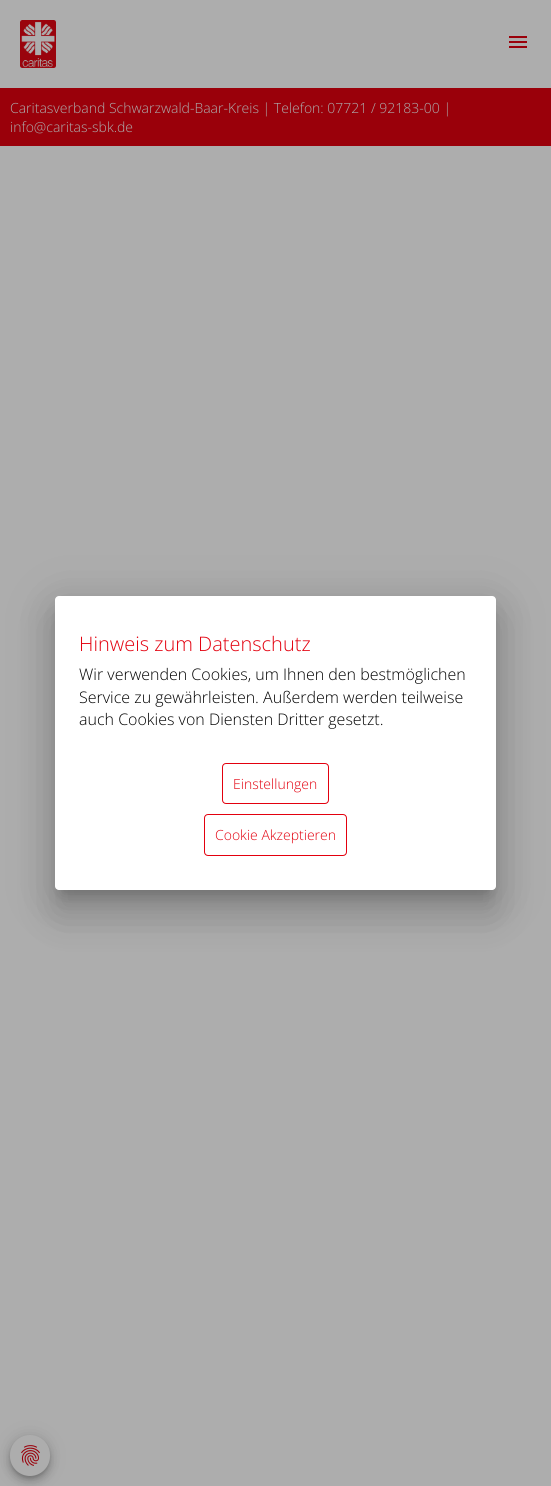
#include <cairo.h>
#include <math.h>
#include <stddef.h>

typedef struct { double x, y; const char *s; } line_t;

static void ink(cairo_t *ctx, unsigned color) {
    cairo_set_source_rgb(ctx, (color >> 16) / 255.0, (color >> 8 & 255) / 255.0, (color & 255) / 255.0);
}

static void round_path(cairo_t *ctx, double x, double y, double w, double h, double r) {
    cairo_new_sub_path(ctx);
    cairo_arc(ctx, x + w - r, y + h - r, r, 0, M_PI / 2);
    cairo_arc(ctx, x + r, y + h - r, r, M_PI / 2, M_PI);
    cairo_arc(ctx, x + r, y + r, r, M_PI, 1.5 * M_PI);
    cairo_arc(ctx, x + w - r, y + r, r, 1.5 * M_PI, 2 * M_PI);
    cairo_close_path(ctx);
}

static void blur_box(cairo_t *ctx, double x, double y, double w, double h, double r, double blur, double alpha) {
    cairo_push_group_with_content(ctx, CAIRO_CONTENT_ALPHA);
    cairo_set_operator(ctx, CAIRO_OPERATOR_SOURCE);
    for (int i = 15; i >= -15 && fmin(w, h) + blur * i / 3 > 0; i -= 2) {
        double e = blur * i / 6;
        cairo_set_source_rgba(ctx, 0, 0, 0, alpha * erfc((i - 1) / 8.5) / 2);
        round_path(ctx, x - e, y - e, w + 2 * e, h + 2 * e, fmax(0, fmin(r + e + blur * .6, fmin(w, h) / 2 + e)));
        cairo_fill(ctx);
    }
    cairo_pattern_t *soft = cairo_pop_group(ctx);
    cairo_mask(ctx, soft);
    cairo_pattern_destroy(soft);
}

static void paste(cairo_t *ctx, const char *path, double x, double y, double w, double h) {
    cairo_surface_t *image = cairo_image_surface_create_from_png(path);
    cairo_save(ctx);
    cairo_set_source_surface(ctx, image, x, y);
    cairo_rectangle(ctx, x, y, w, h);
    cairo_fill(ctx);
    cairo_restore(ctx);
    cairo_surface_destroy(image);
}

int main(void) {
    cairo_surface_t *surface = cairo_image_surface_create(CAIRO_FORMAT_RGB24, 551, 1486);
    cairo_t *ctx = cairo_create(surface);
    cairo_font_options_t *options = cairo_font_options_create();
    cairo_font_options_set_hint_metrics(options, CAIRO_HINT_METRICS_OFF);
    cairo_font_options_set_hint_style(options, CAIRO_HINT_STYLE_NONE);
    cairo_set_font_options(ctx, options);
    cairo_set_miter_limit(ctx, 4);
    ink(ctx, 0xADADAD);
    cairo_paint(ctx);
    paste(ctx, "media/1.png", 20, 20, 36, 48);
    paste(ctx, "media/2.png", 509, 36, 18, 12);
    ink(ctx, 0x9A000A);
    cairo_rectangle(ctx, 0, 88, 551, 58);
    cairo_fill(ctx);
    cairo_select_font_face(ctx, "Open Sans Light", CAIRO_FONT_SLANT_NORMAL, CAIRO_FONT_WEIGHT_NORMAL);
    cairo_set_font_size(ctx, 14);
    ink(ctx, 0xADADAD);
    cairo_move_to(ctx, 10, 113);
    cairo_show_text(ctx, "Caritasverband Schwarzwald-Baar-Kreis | Telefon: 07721 / 92183-00 |");
    cairo_move_to(ctx, 10, 132);
    cairo_show_text(ctx, "info@caritas-sbk.de");
    ink(ctx, 0x000000);
    blur_box(ctx, 10, 1436, 40, 41, 20, 9, 0.12);
    blur_box(ctx, 10, 1441, 40, 41, 20, 5, 0.14);
    blur_box(ctx, 11, 1439, 38, 39, 19, 2.5, 0.2);
    ink(ctx, 0xADADAD);
    round_path(ctx, 10, 1435, 40, 41, 20);
    cairo_fill(ctx);
    paste(ctx, "media/3.png", 21, 1445, 19, 21);
    ink(ctx, 0x000000);
    blur_box(ctx, 47, 597, 457, 310, 12, 23, 0.12);
    blur_box(ctx, 52, 617, 447, 300, 7, 19, 0.14);
    blur_box(ctx, 62, 614, 427, 280, 0, 7.5, 0.2);
    ink(ctx, 0xFFFFFF);
    round_path(ctx, 55, 596, 441, 294, 4);
    cairo_fill(ctx);
    cairo_set_font_size(ctx, 20);
    ink(ctx, 0xE3000E);
    cairo_move_to(ctx, 79, 651);
    cairo_show_text(ctx, "Hinweis zum Datenschutz");
    cairo_set_font_size(ctx, 16);
    ink(ctx, 0x000000);
    {
        static const line_t items[] = {
            {79, 680, "Wir verwenden Cookies, um Ihnen den bestmöglichen"},
            {79, 703, "Service zu gewährleisten. Außerdem werden teilweise"},
            {79, 725, "auch Cookies von Diensten Dritter gesetzt."},
        };
        for (size_t i = 0; i < sizeof items / sizeof *items; i++) {
            cairo_move_to(ctx, items[i].x, items[i].y);
            cairo_show_text(ctx, items[i].s);
        }
    }
    round_path(ctx, 222.5, 763.5, 106, 40, 3.5);
    ink(ctx, 0xE3000E);
    cairo_set_line_width(ctx, 1);
    cairo_stroke(ctx);
    cairo_set_font_size(ctx, 14);
    cairo_move_to(ctx, 233, 789);
    cairo_show_text(ctx, "Einstellungen");
    round_path(ctx, 204.5, 814.5, 142, 41, 3.5);
    cairo_stroke(ctx);
    cairo_move_to(ctx, 215, 840);
    cairo_show_text(ctx, "Cookie Akzeptieren");
    cairo_surface_write_to_png(surface, "image.png");
    cairo_font_options_destroy(options);
    cairo_destroy(ctx);
    cairo_surface_destroy(surface);
    return 0;
}
